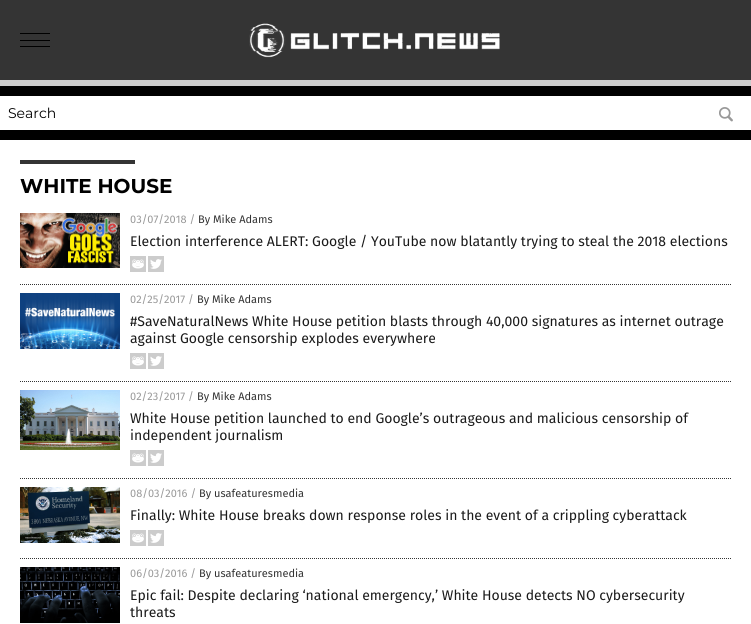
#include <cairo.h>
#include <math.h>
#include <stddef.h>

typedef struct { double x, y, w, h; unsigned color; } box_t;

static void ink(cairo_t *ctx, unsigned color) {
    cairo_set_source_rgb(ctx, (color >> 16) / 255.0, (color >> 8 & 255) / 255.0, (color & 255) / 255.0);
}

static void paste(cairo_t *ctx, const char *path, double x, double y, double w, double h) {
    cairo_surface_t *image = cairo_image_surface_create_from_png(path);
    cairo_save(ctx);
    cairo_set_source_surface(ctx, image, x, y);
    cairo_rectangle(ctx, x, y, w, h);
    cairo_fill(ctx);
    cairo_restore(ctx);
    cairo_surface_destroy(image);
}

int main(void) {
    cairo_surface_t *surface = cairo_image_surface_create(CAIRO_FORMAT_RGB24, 751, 624);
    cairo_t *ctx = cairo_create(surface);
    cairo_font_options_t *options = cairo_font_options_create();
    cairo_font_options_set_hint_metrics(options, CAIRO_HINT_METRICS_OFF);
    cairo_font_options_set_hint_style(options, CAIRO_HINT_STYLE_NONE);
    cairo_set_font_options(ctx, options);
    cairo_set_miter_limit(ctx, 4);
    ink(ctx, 0x000000);
    cairo_paint(ctx);
    {
        static const box_t items[] = {
            {0, 0, 751, 80, 0x343434},
            {20, 46, 30, 1, 0x000000},
            {20, 40, 30, 1, 0x000000},
            {20, 33, 30, 1, 0x000000},
        };
        for (size_t i = 0; i < sizeof items / sizeof *items; i++) {
            ink(ctx, items[i].color);
            cairo_rectangle(ctx, items[i].x, items[i].y, items[i].w, items[i].h);
            cairo_fill(ctx);
        }
    }
    paste(ctx, "media/1.png", 249, 23, 251, 35);
    ink(ctx, 0xCCCCCC);
    cairo_rectangle(ctx, 0, 80, 751, 6);
    cairo_fill(ctx);
    ink(ctx, 0xFFFFFF);
    cairo_rectangle(ctx, 0, 96, 751, 34);
    cairo_fill(ctx);
    cairo_select_font_face(ctx, "Montserrat", CAIRO_FONT_SLANT_NORMAL, CAIRO_FONT_WEIGHT_NORMAL);
    cairo_set_font_size(ctx, 14);
    ink(ctx, 0x000000);
    cairo_move_to(ctx, 8, 118);
    cairo_show_text(ctx, "Search");
    paste(ctx, "media/2.png", 719, 107, 14, 15);
    ink(ctx, 0xFFFFFF);
    cairo_rectangle(ctx, 0, 140, 751, 484);
    cairo_fill(ctx);
    ink(ctx, 0x343434);
    cairo_rectangle(ctx, 20, 160, 115, 4);
    cairo_fill(ctx);
    cairo_select_font_face(ctx, "Montserrat", CAIRO_FONT_SLANT_NORMAL, CAIRO_FONT_WEIGHT_BOLD);
    cairo_set_font_size(ctx, 20);
    ink(ctx, 0x000000);
    cairo_move_to(ctx, 20, 193);
    cairo_show_text(ctx, "WHITE HOUSE");
    cairo_new_path(ctx);
    cairo_move_to(ctx, 20, 284.5);
    cairo_line_to(ctx, 731, 284.5);
    ink(ctx, 0x343434);
    cairo_set_line_width(ctx, 1);
    cairo_set_dash(ctx, (double[]){1, 1}, 2, 0);
    cairo_stroke(ctx);
    paste(ctx, "media/3.png", 20, 213, 100, 55);
    cairo_select_font_face(ctx, "Fira Sans", CAIRO_FONT_SLANT_NORMAL, CAIRO_FONT_WEIGHT_NORMAL);
    cairo_set_font_size(ctx, 11);
    ink(ctx, 0x999999);
    cairo_move_to(ctx, 130, 223);
    cairo_show_text(ctx, "03/07/2018 /");
    ink(ctx, 0x333333);
    cairo_move_to(ctx, 198, 223);
    cairo_show_text(ctx, "By Mike Adams");
    cairo_set_font_size(ctx, 14);
    ink(ctx, 0x1A1A1A);
    cairo_move_to(ctx, 130, 246);
    cairo_show_text(ctx, "Election interference ALERT: Google / YouTube now blatantly trying to steal the 2018 elections");
    paste(ctx, "media/4.png", 130, 256, 16, 16);
    paste(ctx, "media/5.png", 148, 256, 16, 16);
    cairo_new_path(ctx);
    cairo_move_to(ctx, 20, 381.5);
    cairo_line_to(ctx, 731, 381.5);
    ink(ctx, 0x343434);
    cairo_stroke(ctx);
    paste(ctx, "media/6.png", 20, 293, 100, 56);
    cairo_set_font_size(ctx, 11);
    ink(ctx, 0x999999);
    cairo_move_to(ctx, 130, 303);
    cairo_show_text(ctx, "02/25/2017 /");
    ink(ctx, 0x333333);
    cairo_move_to(ctx, 197, 303);
    cairo_show_text(ctx, "By Mike Adams");
    cairo_set_font_size(ctx, 14);
    ink(ctx, 0x1A1A1A);
    cairo_move_to(ctx, 130, 326);
    cairo_show_text(ctx, "#SaveNaturalNews White House petition blasts through 40,000 signatures as internet outrage");
    cairo_move_to(ctx, 130, 343);
    cairo_show_text(ctx, "against Google censorship explodes everywhere");
    paste(ctx, "media/4.png", 130, 353, 16, 16);
    paste(ctx, "media/5.png", 148, 353, 16, 16);
    cairo_new_path(ctx);
    cairo_move_to(ctx, 20, 478.5);
    cairo_line_to(ctx, 731, 478.5);
    ink(ctx, 0x343434);
    cairo_stroke(ctx);
    paste(ctx, "media/7.png", 20, 390, 100, 60);
    cairo_set_font_size(ctx, 11);
    ink(ctx, 0x999999);
    cairo_move_to(ctx, 130, 400);
    cairo_show_text(ctx, "02/23/2017 /");
    ink(ctx, 0x333333);
    cairo_move_to(ctx, 197, 400);
    cairo_show_text(ctx, "By Mike Adams");
    cairo_set_font_size(ctx, 14);
    ink(ctx, 0x1A1A1A);
    cairo_move_to(ctx, 130, 423);
    cairo_show_text(ctx, "White House petition launched to end Google’s outrageous and malicious censorship of");
    cairo_move_to(ctx, 130, 440);
    cairo_show_text(ctx, "independent journalism");
    paste(ctx, "media/4.png", 130, 450, 16, 16);
    paste(ctx, "media/5.png", 148, 450, 16, 16);
    cairo_new_path(ctx);
    cairo_move_to(ctx, 20, 558.5);
    cairo_line_to(ctx, 731, 558.5);
    ink(ctx, 0x343434);
    cairo_stroke(ctx);
    paste(ctx, "media/8.png", 20, 487, 100, 56);
    cairo_set_font_size(ctx, 11);
    ink(ctx, 0x999999);
    cairo_move_to(ctx, 130, 497);
    cairo_show_text(ctx, "08/03/2016 /");
    ink(ctx, 0x333333);
    cairo_move_to(ctx, 199, 497);
    cairo_show_text(ctx, "By usafeaturesmedia");
    cairo_set_font_size(ctx, 14);
    ink(ctx, 0x1A1A1A);
    cairo_move_to(ctx, 130, 520);
    cairo_show_text(ctx, "Finally: White House breaks down response roles in the event of a crippling cyberattack");
    paste(ctx, "media/4.png", 130, 530, 16, 16);
    paste(ctx, "media/5.png", 148, 530, 16, 16);
    paste(ctx, "media/9.png", 20, 567, 100, 56);
    cairo_set_font_size(ctx, 11);
    ink(ctx, 0x999999);
    cairo_move_to(ctx, 130, 577);
    cairo_show_text(ctx, "06/03/2016 /");
    ink(ctx, 0x333333);
    cairo_move_to(ctx, 199, 577);
    cairo_show_text(ctx, "By usafeaturesmedia");
    cairo_set_font_size(ctx, 14);
    ink(ctx, 0x1A1A1A);
    cairo_move_to(ctx, 130, 600);
    cairo_show_text(ctx, "Epic fail: Despite declaring ‘national emergency,’ White House detects NO cybersecurity");
    cairo_move_to(ctx, 130, 617);
    cairo_show_text(ctx, "threats");
    cairo_surface_write_to_png(surface, "image.png");
    cairo_font_options_destroy(options);
    cairo_destroy(ctx);
    cairo_surface_destroy(surface);
    return 0;
}
